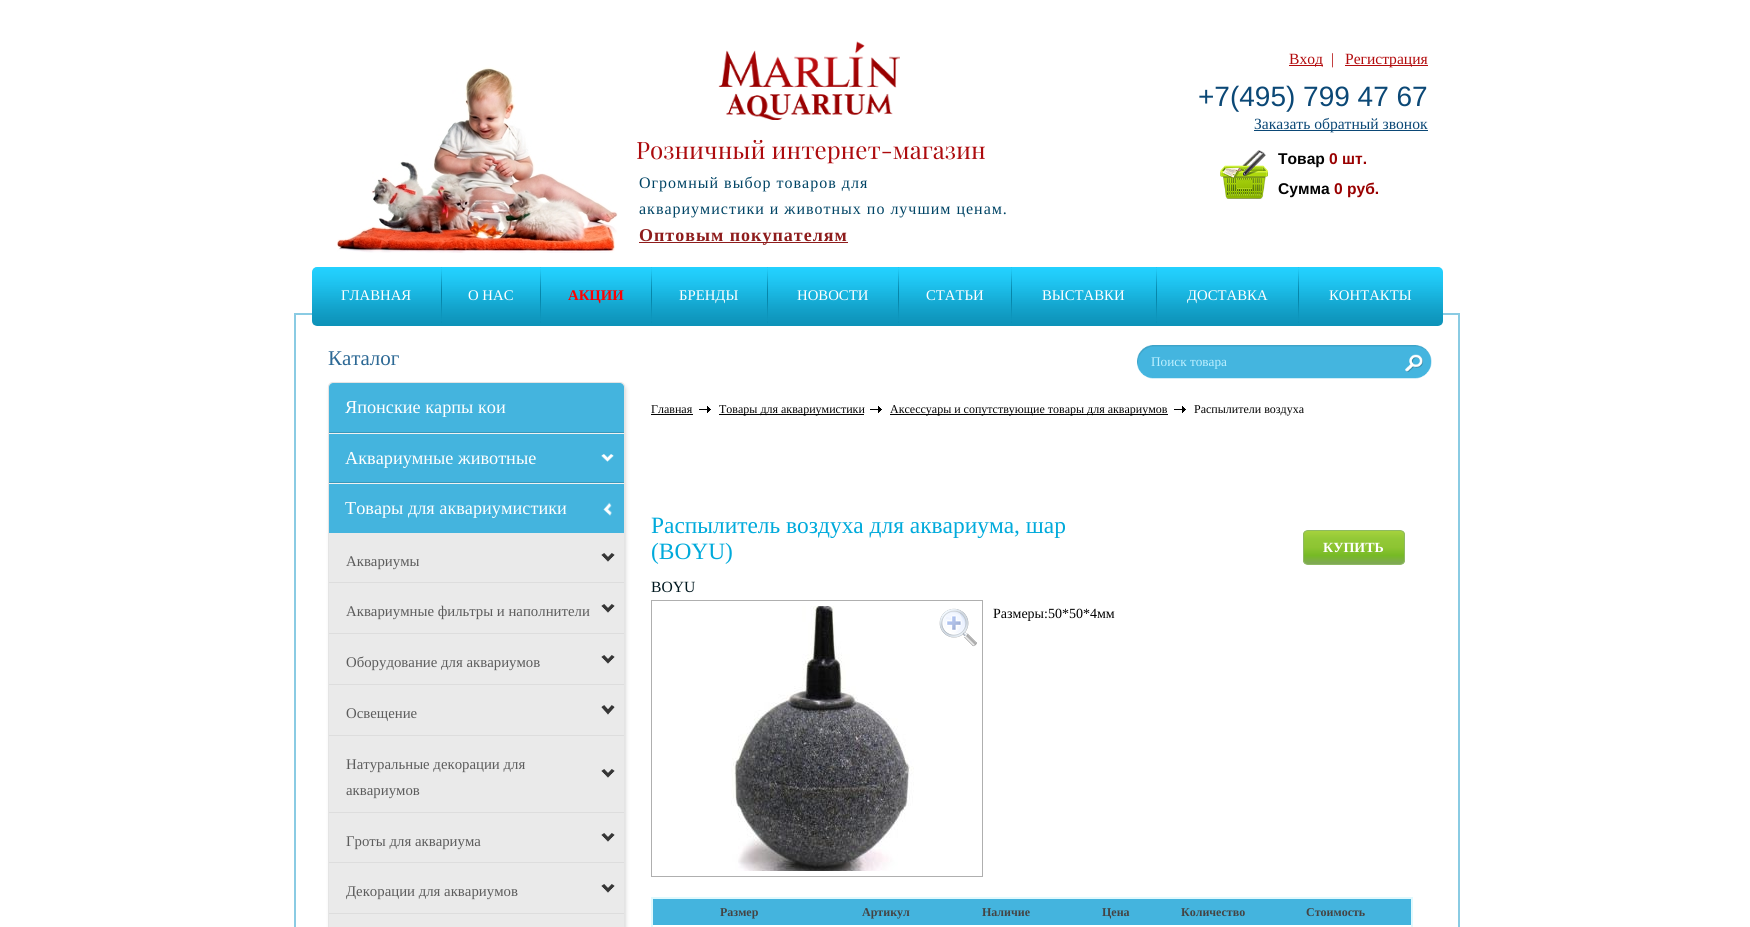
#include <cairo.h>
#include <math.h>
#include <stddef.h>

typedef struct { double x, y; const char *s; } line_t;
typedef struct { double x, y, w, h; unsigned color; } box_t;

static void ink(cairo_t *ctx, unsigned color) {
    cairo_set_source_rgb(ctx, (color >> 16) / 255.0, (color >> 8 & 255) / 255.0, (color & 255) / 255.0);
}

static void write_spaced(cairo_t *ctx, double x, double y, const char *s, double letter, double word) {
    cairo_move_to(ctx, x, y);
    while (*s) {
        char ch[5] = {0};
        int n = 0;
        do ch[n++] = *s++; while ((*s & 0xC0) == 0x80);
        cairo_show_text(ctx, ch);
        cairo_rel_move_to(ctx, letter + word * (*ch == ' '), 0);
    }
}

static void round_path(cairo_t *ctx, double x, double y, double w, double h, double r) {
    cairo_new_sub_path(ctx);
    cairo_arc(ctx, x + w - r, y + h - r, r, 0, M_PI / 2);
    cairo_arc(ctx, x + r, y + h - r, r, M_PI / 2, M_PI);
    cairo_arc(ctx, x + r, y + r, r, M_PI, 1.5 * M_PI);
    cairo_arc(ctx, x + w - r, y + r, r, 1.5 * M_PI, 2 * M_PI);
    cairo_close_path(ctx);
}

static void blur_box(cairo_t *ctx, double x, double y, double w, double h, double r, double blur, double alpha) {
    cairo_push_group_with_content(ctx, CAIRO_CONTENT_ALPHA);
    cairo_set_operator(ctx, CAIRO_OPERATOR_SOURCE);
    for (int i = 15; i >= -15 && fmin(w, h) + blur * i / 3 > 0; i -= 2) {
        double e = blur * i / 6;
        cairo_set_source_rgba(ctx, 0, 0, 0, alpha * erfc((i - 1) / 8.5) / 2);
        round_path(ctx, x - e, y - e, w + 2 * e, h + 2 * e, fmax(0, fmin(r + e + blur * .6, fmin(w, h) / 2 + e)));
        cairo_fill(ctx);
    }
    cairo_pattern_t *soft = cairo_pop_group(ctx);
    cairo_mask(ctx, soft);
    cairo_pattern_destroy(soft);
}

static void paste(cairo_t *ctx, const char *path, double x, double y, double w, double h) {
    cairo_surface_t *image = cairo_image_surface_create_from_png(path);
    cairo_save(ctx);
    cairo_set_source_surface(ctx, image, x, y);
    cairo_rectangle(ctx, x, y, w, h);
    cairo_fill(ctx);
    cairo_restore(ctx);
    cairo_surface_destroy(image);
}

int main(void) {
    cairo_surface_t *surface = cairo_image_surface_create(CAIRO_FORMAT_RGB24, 1750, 927);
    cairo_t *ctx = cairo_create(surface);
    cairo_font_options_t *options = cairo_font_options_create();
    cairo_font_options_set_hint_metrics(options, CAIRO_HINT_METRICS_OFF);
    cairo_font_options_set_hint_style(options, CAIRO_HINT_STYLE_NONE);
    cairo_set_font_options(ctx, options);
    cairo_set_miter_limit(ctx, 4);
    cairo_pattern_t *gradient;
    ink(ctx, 0xFFFFFF);
    cairo_paint(ctx);
    paste(ctx, "media/1.png", 337, 67, 281, 186);
    paste(ctx, "media/2.png", 718, 41, 182, 79);
    ink(ctx, 0xB30B0D);
    cairo_rectangle(ctx, 1289, 65, 34, 1);
    cairo_fill(ctx);
    cairo_select_font_face(ctx, "Liberation Serif", CAIRO_FONT_SLANT_NORMAL, CAIRO_FONT_WEIGHT_NORMAL);
    cairo_set_font_size(ctx, 15.6);
    cairo_move_to(ctx, 1289, 64);
    cairo_show_text(ctx, "Вход");
    cairo_move_to(ctx, 1331, 64);
    cairo_show_text(ctx, "|");
    cairo_rectangle(ctx, 1345, 65, 83, 1);
    cairo_fill(ctx);
    cairo_move_to(ctx, 1345, 64);
    cairo_show_text(ctx, "Регистрация");
    cairo_select_font_face(ctx, "Liberation Sans", CAIRO_FONT_SLANT_NORMAL, CAIRO_FONT_WEIGHT_NORMAL);
    cairo_set_font_size(ctx, 28);
    ink(ctx, 0x0B4876);
    cairo_move_to(ctx, 1198, 106);
    cairo_show_text(ctx, "+7(495) 799 47 67");
    cairo_rectangle(ctx, 1254, 130, 174, 1);
    cairo_fill(ctx);
    cairo_select_font_face(ctx, "Liberation Serif", CAIRO_FONT_SLANT_NORMAL, CAIRO_FONT_WEIGHT_NORMAL);
    cairo_set_font_size(ctx, 15.6);
    cairo_move_to(ctx, 1254, 129);
    cairo_show_text(ctx, "Заказать обратный звонок");
    paste(ctx, "media/3.png", 1220, 150, 48, 49);
    cairo_select_font_face(ctx, "Liberation Sans", CAIRO_FONT_SLANT_NORMAL, CAIRO_FONT_WEIGHT_BOLD);
    ink(ctx, 0x020202);
    cairo_move_to(ctx, 1278, 164);
    cairo_show_text(ctx, "Товар");
    ink(ctx, 0x990000);
    cairo_move_to(ctx, 1329, 164);
    cairo_show_text(ctx, "0 шт.");
    ink(ctx, 0x020202);
    cairo_move_to(ctx, 1278, 194);
    cairo_show_text(ctx, "Сумма");
    ink(ctx, 0x990000);
    cairo_move_to(ctx, 1334, 194);
    cairo_show_text(ctx, "0 руб.");
    cairo_select_font_face(ctx, "Playfair Display", CAIRO_FONT_SLANT_NORMAL, CAIRO_FONT_WEIGHT_NORMAL);
    cairo_set_font_size(ctx, 24);
    ink(ctx, 0xAC0A0D);
    cairo_move_to(ctx, 636, 159);
    cairo_show_text(ctx, "Розничный интернет-магазин");
    cairo_select_font_face(ctx, "Liberation Serif", CAIRO_FONT_SLANT_NORMAL, CAIRO_FONT_WEIGHT_NORMAL);
    cairo_set_font_size(ctx, 16);
    ink(ctx, 0x004465);
    write_spaced(ctx, 639, 188, "Огромный выбор товаров для", 1, 0);
    write_spaced(ctx, 639, 214, "аквариумистики и животных по лучшим ценам.", 1, 0);
    ink(ctx, 0x8E1C1C);
    cairo_rectangle(ctx, 639, 242, 209, 1);
    cairo_fill(ctx);
    cairo_select_font_face(ctx, "Liberation Serif", CAIRO_FONT_SLANT_NORMAL, CAIRO_FONT_WEIGHT_BOLD);
    cairo_set_font_size(ctx, 18);
    write_spaced(ctx, 639, 241, "Оптовым покупателям", 1, 0);
    cairo_rectangle(ctx, 295, 314, 1164, 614);
    ink(ctx, 0x8ACBE3);
    cairo_stroke(ctx);
    paste(ctx, "media/4.png", 312, 267, 1131, 59);
    cairo_select_font_face(ctx, "Liberation Serif", CAIRO_FONT_SLANT_NORMAL, CAIRO_FONT_WEIGHT_NORMAL);
    cairo_set_font_size(ctx, 14.75);
    ink(ctx, 0xFFFFFF);
    cairo_move_to(ctx, 341, 300);
    cairo_show_text(ctx, "ГЛАВНАЯ");
    paste(ctx, "media/5.png", 441, 267, 1, 56);
    cairo_move_to(ctx, 468, 300);
    cairo_show_text(ctx, "О НАС");
    paste(ctx, "media/5.png", 540, 267, 1, 56);
    cairo_select_font_face(ctx, "Liberation Serif", CAIRO_FONT_SLANT_NORMAL, CAIRO_FONT_WEIGHT_BOLD);
    ink(ctx, 0xFF0000);
    cairo_move_to(ctx, 568, 300);
    cairo_show_text(ctx, "АКЦИИ");
    paste(ctx, "media/5.png", 651, 267, 1, 56);
    cairo_select_font_face(ctx, "Liberation Serif", CAIRO_FONT_SLANT_NORMAL, CAIRO_FONT_WEIGHT_NORMAL);
    ink(ctx, 0xFFFFFF);
    cairo_move_to(ctx, 679, 300);
    cairo_show_text(ctx, "БРЕНДЫ");
    paste(ctx, "media/5.png", 767, 267, 1, 56);
    cairo_move_to(ctx, 797, 300);
    cairo_show_text(ctx, "НОВОСТИ");
    paste(ctx, "media/5.png", 898, 267, 1, 56);
    cairo_move_to(ctx, 926, 300);
    cairo_show_text(ctx, "СТАТЬИ");
    paste(ctx, "media/5.png", 1011, 267, 1, 56);
    cairo_move_to(ctx, 1042, 300);
    cairo_show_text(ctx, "ВЫСТАВКИ");
    paste(ctx, "media/5.png", 1156, 267, 1, 56);
    cairo_move_to(ctx, 1187, 300);
    cairo_show_text(ctx, "ДОСТАВКА");
    paste(ctx, "media/5.png", 1298, 267, 1, 56);
    cairo_move_to(ctx, 1329, 300);
    cairo_show_text(ctx, "КОНТАКТЫ");
    paste(ctx, "media/6.png", 1137, 345, 295, 34);
    cairo_set_font_size(ctx, 13.25);
    ink(ctx, 0xBDF0FF);
    cairo_move_to(ctx, 1151, 366);
    cairo_show_text(ctx, "Поиск товара");
    cairo_set_font_size(ctx, 21);
    ink(ctx, 0x2D6995);
    cairo_move_to(ctx, 328, 365);
    cairo_show_text(ctx, "Каталог");
    ink(ctx, 0x888888);
    blur_box(ctx, 333, 388, 290, 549, 1, 3, 1);
    round_path(ctx, 328.5, 382.5, 296, 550, 4.5);
    ink(ctx, 0xE4E4E4);
    cairo_set_line_width(ctx, 1);
    cairo_stroke(ctx);
    ink(ctx, 0x3997BA);
    cairo_rectangle(ctx, 329, 432, 295, 1);
    cairo_fill(ctx);
    ink(ctx, 0x44B4DE);
    cairo_new_path(ctx);
    cairo_move_to(ctx, 333, 383);
    cairo_line_to(ctx, 620, 383);
    cairo_curve_to(ctx, 622, 383, 624, 385, 624, 387);
    cairo_line_to(ctx, 624, 432);
    cairo_line_to(ctx, 329, 432);
    cairo_line_to(ctx, 329, 387);
    cairo_curve_to(ctx, 329, 385, 331, 383, 333, 383);
    cairo_close_path(ctx);
    cairo_fill(ctx);
    cairo_set_font_size(ctx, 18.25);
    ink(ctx, 0xFFFFFF);
    cairo_move_to(ctx, 345, 413);
    cairo_show_text(ctx, "Японские карпы кои");
    {
        static const box_t items[] = {
            {329, 433, 295, 1, 0xF2F2F2},
            {329, 482, 295, 1, 0x3997BA},
            {329, 434, 295, 48, 0x44B4DE},
        };
        for (size_t i = 0; i < sizeof items / sizeof *items; i++) {
            ink(ctx, items[i].color);
            cairo_rectangle(ctx, items[i].x, items[i].y, items[i].w, items[i].h);
            cairo_fill(ctx);
        }
    }
    ink(ctx, 0xFFFFFF);
    cairo_move_to(ctx, 345, 464);
    cairo_show_text(ctx, "Аквариумные животные");
    paste(ctx, "media/7.png", 601, 454, 13, 8);
    ink(ctx, 0xF2F2F2);
    cairo_rectangle(ctx, 329, 483, 295, 1);
    cairo_fill(ctx);
    ink(ctx, 0x44B4DE);
    cairo_rectangle(ctx, 329, 484, 295, 49);
    cairo_fill(ctx);
    ink(ctx, 0xFFFFFF);
    cairo_move_to(ctx, 345, 514);
    cairo_show_text(ctx, "Товары для аквариумистики");
    paste(ctx, "media/8.png", 603, 502, 9, 14);
    ink(ctx, 0xDDDDDD);
    cairo_rectangle(ctx, 329, 582, 295, 1);
    cairo_fill(ctx);
    ink(ctx, 0xEAEAEA);
    cairo_rectangle(ctx, 329, 533, 295, 49);
    cairo_fill(ctx);
    cairo_set_font_size(ctx, 14.8);
    ink(ctx, 0x5C5C5C);
    cairo_move_to(ctx, 346, 566);
    cairo_show_text(ctx, "Аквариумы");
    paste(ctx, "media/9.png", 601, 553, 14, 9);
    ink(ctx, 0xDDDDDD);
    cairo_rectangle(ctx, 329, 633, 295, 1);
    cairo_fill(ctx);
    ink(ctx, 0xEAEAEA);
    cairo_rectangle(ctx, 329, 583, 295, 50);
    cairo_fill(ctx);
    ink(ctx, 0x5C5C5C);
    cairo_move_to(ctx, 346, 616);
    cairo_show_text(ctx, "Аквариумные фильтры и наполнители");
    paste(ctx, "media/9.png", 601, 604, 14, 9);
    ink(ctx, 0xDDDDDD);
    cairo_rectangle(ctx, 329, 684, 295, 1);
    cairo_fill(ctx);
    ink(ctx, 0xEAEAEA);
    cairo_rectangle(ctx, 329, 634, 295, 50);
    cairo_fill(ctx);
    ink(ctx, 0x5C5C5C);
    cairo_move_to(ctx, 346, 667);
    cairo_show_text(ctx, "Оборудование для аквариумов");
    paste(ctx, "media/9.png", 601, 655, 14, 9);
    ink(ctx, 0xDDDDDD);
    cairo_rectangle(ctx, 329, 735, 295, 1);
    cairo_fill(ctx);
    ink(ctx, 0xEAEAEA);
    cairo_rectangle(ctx, 329, 685, 295, 50);
    cairo_fill(ctx);
    ink(ctx, 0x5C5C5C);
    cairo_move_to(ctx, 346, 718);
    cairo_show_text(ctx, "Освещение");
    paste(ctx, "media/10.png", 601, 705, 14, 10);
    ink(ctx, 0xDDDDDD);
    cairo_rectangle(ctx, 329, 812, 295, 1);
    cairo_fill(ctx);
    ink(ctx, 0xEAEAEA);
    cairo_rectangle(ctx, 329, 736, 295, 76);
    cairo_fill(ctx);
    ink(ctx, 0x5C5C5C);
    cairo_move_to(ctx, 346, 769);
    cairo_show_text(ctx, "Натуральные декорации для");
    cairo_move_to(ctx, 346, 795);
    cairo_show_text(ctx, "аквариумов");
    paste(ctx, "media/9.png", 601, 769, 14, 9);
    ink(ctx, 0xDDDDDD);
    cairo_rectangle(ctx, 329, 862, 295, 1);
    cairo_fill(ctx);
    ink(ctx, 0xEAEAEA);
    cairo_rectangle(ctx, 329, 813, 295, 49);
    cairo_fill(ctx);
    ink(ctx, 0x5C5C5C);
    cairo_move_to(ctx, 346, 846);
    cairo_show_text(ctx, "Гроты для аквариума");
    paste(ctx, "media/9.png", 601, 833, 14, 9);
    ink(ctx, 0xDDDDDD);
    cairo_rectangle(ctx, 329, 913, 295, 1);
    cairo_fill(ctx);
    ink(ctx, 0xEAEAEA);
    cairo_rectangle(ctx, 329, 863, 295, 50);
    cairo_fill(ctx);
    ink(ctx, 0x5C5C5C);
    cairo_move_to(ctx, 346, 896);
    cairo_show_text(ctx, "Декорации для аквариумов");
    paste(ctx, "media/9.png", 601, 884, 14, 9);
    ink(ctx, 0xEAEAEA);
    cairo_rectangle(ctx, 329, 914, 295, 13);
    cairo_fill(ctx);
    paste(ctx, "media/11.png", 699, 406, 12, 7);
    cairo_set_font_size(ctx, 12);
    ink(ctx, 0x020202);
    cairo_move_to(ctx, 651, 413);
    cairo_show_text(ctx, "Главная");
    cairo_rectangle(ctx, 651, 414, 42, 1);
    cairo_fill(ctx);
    paste(ctx, "media/11.png", 870, 406, 12, 7);
    cairo_rectangle(ctx, 719, 414, 145, 1);
    cairo_fill(ctx);
    cairo_move_to(ctx, 719, 413);
    cairo_show_text(ctx, "Товары для аквариумистики");
    paste(ctx, "media/11.png", 1174, 406, 12, 7);
    cairo_rectangle(ctx, 890, 414, 278, 1);
    cairo_fill(ctx);
    cairo_move_to(ctx, 890, 413);
    cairo_show_text(ctx, "Аксессуары и сопутствующие товары для аквариумов");
    cairo_move_to(ctx, 1194, 413);
    cairo_show_text(ctx, "Распылители воздуха");
    cairo_set_font_size(ctx, 23.4);
    ink(ctx, 0x00AADB);
    cairo_move_to(ctx, 651, 533);
    cairo_show_text(ctx, "Распылитель воздуха для аквариума, шар");
    cairo_move_to(ctx, 651, 559);
    cairo_show_text(ctx, "(BOYU)");
    cairo_set_font_size(ctx, 15.6);
    ink(ctx, 0x00181F);
    cairo_move_to(ctx, 651, 592);
    cairo_show_text(ctx, "BOYU");
    cairo_save(ctx);
    round_path(ctx, 1303, 530, 102, 35, 5);
    cairo_clip(ctx);
    gradient = cairo_pattern_create_linear(1354, 531, 1354, 564);
    cairo_pattern_add_color_stop_rgba(gradient, 0, 0.651, 0.824, 0.239, 1);
    cairo_pattern_add_color_stop_rgba(gradient, 0.22, 0.576, 0.788, 0.216, 1);
    cairo_pattern_add_color_stop_rgba(gradient, 0.5, 0.553, 0.769, 0.196, 1);
    cairo_pattern_add_color_stop_rgba(gradient, 0.74, 0.463, 0.729, 0.145, 1);
    cairo_pattern_add_color_stop_rgba(gradient, 1, 0.502, 0.655, 0.345, 1);
    cairo_set_source(ctx, gradient);
    cairo_pattern_destroy(gradient);
    cairo_rectangle(ctx, 1303, 531, 102, 33);
    cairo_fill(ctx);
    cairo_restore(ctx);
    round_path(ctx, 1303.5, 530.5, 101, 34, 4.5);
    ink(ctx, 0x8EBA61);
    cairo_stroke(ctx);
    cairo_select_font_face(ctx, "Liberation Serif", CAIRO_FONT_SLANT_NORMAL, CAIRO_FONT_WEIGHT_BOLD);
    cairo_set_font_size(ctx, 14);
    ink(ctx, 0xFFFFFF);
    cairo_move_to(ctx, 1323, 552);
    cairo_show_text(ctx, "КУПИТЬ");
    cairo_rectangle(ctx, 651.5, 600.5, 331, 276);
    ink(ctx, 0xAFAFAF);
    cairo_stroke(ctx);
    paste(ctx, "media/12.png", 731, 606, 183, 265);
    paste(ctx, "media/13.png", 939, 608, 38, 39);
    cairo_select_font_face(ctx, "Liberation Serif", CAIRO_FONT_SLANT_NORMAL, CAIRO_FONT_WEIGHT_NORMAL);
    ink(ctx, 0x020202);
    cairo_move_to(ctx, 993, 618);
    cairo_show_text(ctx, "Размеры:50*50*4мм");
    {
        static const box_t items[] = {
            {651, 897, 762, 2, 0xE0F9FD},
            {1411, 897, 2, 30, 0xE0F9FD},
            {651, 897, 2, 30, 0xE0F9FD},
            {653, 899, 758, 26, 0x44B4DE},
        };
        for (size_t i = 0; i < sizeof items / sizeof *items; i++) {
            ink(ctx, items[i].color);
            cairo_rectangle(ctx, items[i].x, items[i].y, items[i].w, items[i].h);
            cairo_fill(ctx);
        }
    }
    cairo_select_font_face(ctx, "Liberation Serif", CAIRO_FONT_SLANT_NORMAL, CAIRO_FONT_WEIGHT_BOLD);
    cairo_set_font_size(ctx, 12);
    ink(ctx, 0x444444);
    {
        static const line_t items[] = {
            {720, 916, "Размер"},
            {862, 916, "Артикул"},
            {982, 916, "Наличие"},
            {1102, 916, "Цена"},
            {1181, 916, "Количество"},
            {1306, 916, "Стоимость"},
        };
        for (size_t i = 0; i < sizeof items / sizeof *items; i++) {
            cairo_move_to(ctx, items[i].x, items[i].y);
            cairo_show_text(ctx, items[i].s);
        }
    }
    cairo_surface_write_to_png(surface, "image.png");
    cairo_font_options_destroy(options);
    cairo_destroy(ctx);
    cairo_surface_destroy(surface);
    return 0;
}
